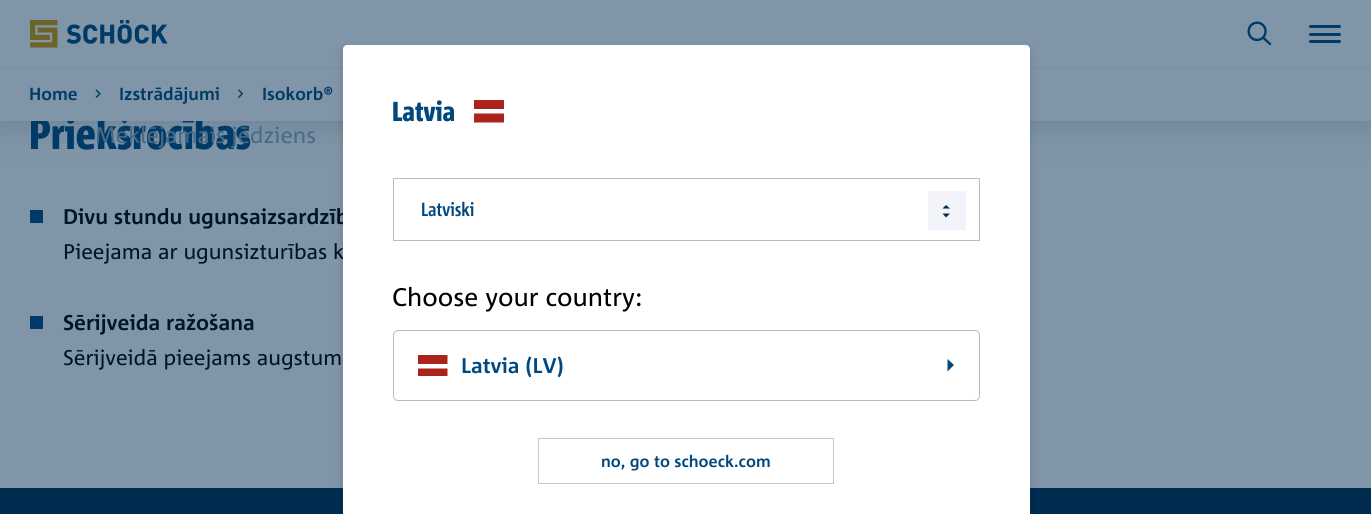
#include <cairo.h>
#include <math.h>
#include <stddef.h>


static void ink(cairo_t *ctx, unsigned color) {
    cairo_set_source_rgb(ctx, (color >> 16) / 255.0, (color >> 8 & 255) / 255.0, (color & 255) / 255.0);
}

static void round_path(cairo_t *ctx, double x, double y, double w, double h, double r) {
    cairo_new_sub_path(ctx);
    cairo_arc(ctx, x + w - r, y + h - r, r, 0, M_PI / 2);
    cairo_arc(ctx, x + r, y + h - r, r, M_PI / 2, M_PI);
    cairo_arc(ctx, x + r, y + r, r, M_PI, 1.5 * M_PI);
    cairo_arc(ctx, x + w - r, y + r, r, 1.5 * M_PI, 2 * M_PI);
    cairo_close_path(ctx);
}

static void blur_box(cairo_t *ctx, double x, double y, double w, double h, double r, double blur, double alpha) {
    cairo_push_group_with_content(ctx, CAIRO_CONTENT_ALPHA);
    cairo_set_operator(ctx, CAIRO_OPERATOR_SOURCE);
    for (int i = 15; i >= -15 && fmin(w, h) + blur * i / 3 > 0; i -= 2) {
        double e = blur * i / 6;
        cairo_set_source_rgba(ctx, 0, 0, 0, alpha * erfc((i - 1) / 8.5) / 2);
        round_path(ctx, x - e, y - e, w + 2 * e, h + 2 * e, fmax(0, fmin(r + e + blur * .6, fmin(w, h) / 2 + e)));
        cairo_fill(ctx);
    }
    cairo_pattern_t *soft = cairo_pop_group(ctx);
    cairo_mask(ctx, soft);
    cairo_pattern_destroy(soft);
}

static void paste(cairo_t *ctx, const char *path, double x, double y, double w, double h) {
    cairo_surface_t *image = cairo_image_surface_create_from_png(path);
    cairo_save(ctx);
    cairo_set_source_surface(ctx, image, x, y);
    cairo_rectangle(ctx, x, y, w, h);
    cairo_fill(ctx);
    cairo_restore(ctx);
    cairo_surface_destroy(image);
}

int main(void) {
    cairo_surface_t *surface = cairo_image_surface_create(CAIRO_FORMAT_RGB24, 1371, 514);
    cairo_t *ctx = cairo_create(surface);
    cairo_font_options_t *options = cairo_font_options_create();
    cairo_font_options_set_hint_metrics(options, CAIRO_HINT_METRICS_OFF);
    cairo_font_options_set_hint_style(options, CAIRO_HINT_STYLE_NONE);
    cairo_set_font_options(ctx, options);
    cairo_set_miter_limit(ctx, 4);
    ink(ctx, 0x8096A8);
    cairo_paint(ctx);
    ink(ctx, 0x001628);
    blur_box(ctx, 0, 68, 1371, 53, 0, 19, 0.2);
    cairo_select_font_face(ctx, "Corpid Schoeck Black", CAIRO_FONT_SLANT_NORMAL, CAIRO_FONT_WEIGHT_NORMAL);
    cairo_set_font_size(ctx, 43.75);
    ink(ctx, 0x003A67);
    cairo_move_to(ctx, 29, 149);
    cairo_show_text(ctx, "Priekšrocības");
    ink(ctx, 0x8096A8);
    cairo_rectangle(ctx, 0, 68, 1371, 53);
    cairo_fill(ctx);
    cairo_select_font_face(ctx, "Corpid Schoeck", CAIRO_FONT_SLANT_NORMAL, CAIRO_FONT_WEIGHT_BOLD);
    cairo_set_font_size(ctx, 17.5);
    ink(ctx, 0x003A67);
    cairo_move_to(ctx, 29, 100);
    cairo_show_text(ctx, "Home");
    paste(ctx, "media/1.png", 95, 89, 6, 9);
    cairo_move_to(ctx, 119, 100);
    cairo_show_text(ctx, "Izstrādājumi");
    paste(ctx, "media/2.png", 238, 89, 6, 9);
    cairo_move_to(ctx, 262, 100);
    cairo_show_text(ctx, "Isokorb®");
    cairo_rectangle(ctx, 30, 210, 13, 13);
    cairo_fill(ctx);
    cairo_set_font_size(ctx, 21.25);
    ink(ctx, 0x001628);
    cairo_move_to(ctx, 63, 224);
    cairo_show_text(ctx, "Divu stundu ugunsaizsardzīb");
    cairo_select_font_face(ctx, "Corpid Schoeck", CAIRO_FONT_SLANT_NORMAL, CAIRO_FONT_WEIGHT_NORMAL);
    cairo_move_to(ctx, 63, 259);
    cairo_show_text(ctx, "Pieejama ar ugunsizturības k");
    ink(ctx, 0x003A67);
    cairo_rectangle(ctx, 30, 316, 13, 13);
    cairo_fill(ctx);
    cairo_select_font_face(ctx, "Corpid Schoeck", CAIRO_FONT_SLANT_NORMAL, CAIRO_FONT_WEIGHT_BOLD);
    ink(ctx, 0x001628);
    cairo_move_to(ctx, 63, 330);
    cairo_show_text(ctx, "Sērijveida ražošana");
    cairo_select_font_face(ctx, "Corpid Schoeck", CAIRO_FONT_SLANT_NORMAL, CAIRO_FONT_WEIGHT_NORMAL);
    cairo_move_to(ctx, 63, 365);
    cairo_show_text(ctx, "Sērijveidā pieejams augstum");
    ink(ctx, 0x001628);
    blur_box(ctx, 0, 0, 1371, 68, 0, 0.5, 0.2);
    ink(ctx, 0x8096A8);
    cairo_rectangle(ctx, 0, 0, 1371, 68);
    cairo_fill(ctx);
    ink(ctx, 0x002C50);
    cairo_rectangle(ctx, 0, 488, 1371, 26);
    cairo_fill(ctx);
    ink(ctx, 0x000000);
    blur_box(ctx, 343, 50, 687, 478, 0, 4.5, 0.15);
    ink(ctx, 0xFFFFFF);
    cairo_new_path(ctx);
    cairo_move_to(ctx, 347, 45);
    cairo_line_to(ctx, 1026, 45);
    cairo_curve_to(ctx, 1028, 45, 1030, 47, 1030, 49);
    cairo_line_to(ctx, 1030, 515);
    cairo_line_to(ctx, 343, 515);
    cairo_line_to(ctx, 343, 49);
    cairo_curve_to(ctx, 343, 47, 345, 45, 347, 45);
    cairo_close_path(ctx);
    cairo_fill(ctx);
    cairo_select_font_face(ctx, "Corpid Schoeck Black", CAIRO_FONT_SLANT_NORMAL, CAIRO_FONT_WEIGHT_NORMAL);
    cairo_set_font_size(ctx, 27.5);
    ink(ctx, 0x00487E);
    cairo_move_to(ctx, 392, 121);
    cairo_show_text(ctx, "Latvia");
    ink(ctx, 0xAB231D);
    cairo_set_fill_rule(ctx, CAIRO_FILL_RULE_EVEN_ODD);
    cairo_new_path(ctx);
    cairo_move_to(ctx, 474, 100);
    cairo_line_to(ctx, 504, 100);
    cairo_line_to(ctx, 504, 109);
    cairo_line_to(ctx, 474, 109);
    cairo_close_path(ctx);
    cairo_move_to(ctx, 474, 113.5);
    cairo_line_to(ctx, 504, 113.5);
    cairo_line_to(ctx, 504, 122.5);
    cairo_line_to(ctx, 474, 122.5);
    cairo_close_path(ctx);
    cairo_fill(ctx);
    cairo_rectangle(ctx, 393.5, 178.5, 586, 62);
    ink(ctx, 0xAEC0D1);
    cairo_set_line_width(ctx, 1);
    cairo_stroke(ctx);
    cairo_select_font_face(ctx, "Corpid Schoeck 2", CAIRO_FONT_SLANT_NORMAL, CAIRO_FONT_WEIGHT_BOLD);
    cairo_set_font_size(ctx, 19);
    ink(ctx, 0x00487E);
    cairo_move_to(ctx, 421, 216);
    cairo_show_text(ctx, "Latviski");
    ink(ctx, 0xF2F4F9);
    cairo_rectangle(ctx, 928, 191, 38, 39);
    cairo_fill(ctx);
    ink(ctx, 0x002C50);
    cairo_set_fill_rule(ctx, CAIRO_FILL_RULE_WINDING);
    cairo_new_path(ctx);
    cairo_move_to(ctx, 950, 208.5);
    cairo_line_to(ctx, 942.5, 208.5);
    cairo_line_to(ctx, 946, 205);
    cairo_close_path(ctx);
    cairo_move_to(ctx, 942.5, 213.5);
    cairo_line_to(ctx, 950, 213.5);
    cairo_line_to(ctx, 946, 217.5);
    cairo_close_path(ctx);
    cairo_fill(ctx);
    cairo_select_font_face(ctx, "Corpid Schoeck", CAIRO_FONT_SLANT_NORMAL, CAIRO_FONT_WEIGHT_NORMAL);
    cairo_set_font_size(ctx, 25.5);
    ink(ctx, 0x000000);
    cairo_move_to(ctx, 392, 306);
    cairo_show_text(ctx, "Choose your country:");
    round_path(ctx, 393.5, 330.5, 586, 70, 4.5);
    ink(ctx, 0xAEC0D1);
    cairo_stroke(ctx);
    cairo_save(ctx);
    cairo_rectangle(ctx, 418, 355, 30, 21);
    cairo_clip(ctx);
    ink(ctx, 0xAB231D);
    cairo_set_fill_rule(ctx, CAIRO_FILL_RULE_EVEN_ODD);
    cairo_new_path(ctx);
    cairo_move_to(ctx, 417.5, 355);
    cairo_line_to(ctx, 447.5, 355);
    cairo_line_to(ctx, 447.5, 364);
    cairo_line_to(ctx, 417.5, 364);
    cairo_close_path(ctx);
    cairo_move_to(ctx, 417.5, 368.5);
    cairo_line_to(ctx, 447.5, 368.5);
    cairo_line_to(ctx, 447.5, 377.5);
    cairo_line_to(ctx, 417.5, 377.5);
    cairo_close_path(ctx);
    cairo_fill(ctx);
    cairo_restore(ctx);
    cairo_select_font_face(ctx, "Corpid Schoeck", CAIRO_FONT_SLANT_NORMAL, CAIRO_FONT_WEIGHT_BOLD);
    cairo_set_font_size(ctx, 21.25);
    ink(ctx, 0x00487E);
    cairo_move_to(ctx, 461, 373);
    cairo_show_text(ctx, "Latvia (LV)");
    cairo_new_path(ctx);
    cairo_move_to(ctx, 954, 365);
    cairo_line_to(ctx, 947.5, 359);
    cairo_line_to(ctx, 947.5, 371.5);
    cairo_close_path(ctx);
    cairo_fill(ctx);
    cairo_rectangle(ctx, 538.5, 438.5, 295, 45);
    ink(ctx, 0xBEC8DA);
    cairo_stroke(ctx);
    cairo_set_font_size(ctx, 16.25);
    ink(ctx, 0x00487E);
    cairo_move_to(ctx, 601, 467);
    cairo_show_text(ctx, "no, go to schoeck.com");
    paste(ctx, "media/3.png", 30, 20, 138, 28);
    ink(ctx, 0x003A67);
    round_path(ctx, 1309, 33, 32, 3, 1.5);
    cairo_fill(ctx);
    round_path(ctx, 1309, 25, 32, 3, 1.5);
    cairo_fill(ctx);
    round_path(ctx, 1309, 40, 32, 3, 1.5);
    cairo_fill(ctx);
    paste(ctx, "media/4.png", 1247, 21, 25, 25);
    cairo_select_font_face(ctx, "Corpid Schoeck", CAIRO_FONT_SLANT_NORMAL, CAIRO_FONT_WEIGHT_NORMAL);
    cairo_set_font_size(ctx, 22.5);
    ink(ctx, 0x466B88);
    cairo_move_to(ctx, 95, 143);
    cairo_show_text(ctx, "Meklējamais jēdziens");
    cairo_surface_write_to_png(surface, "image.png");
    cairo_font_options_destroy(options);
    cairo_destroy(ctx);
    cairo_surface_destroy(surface);
    return 0;
}
